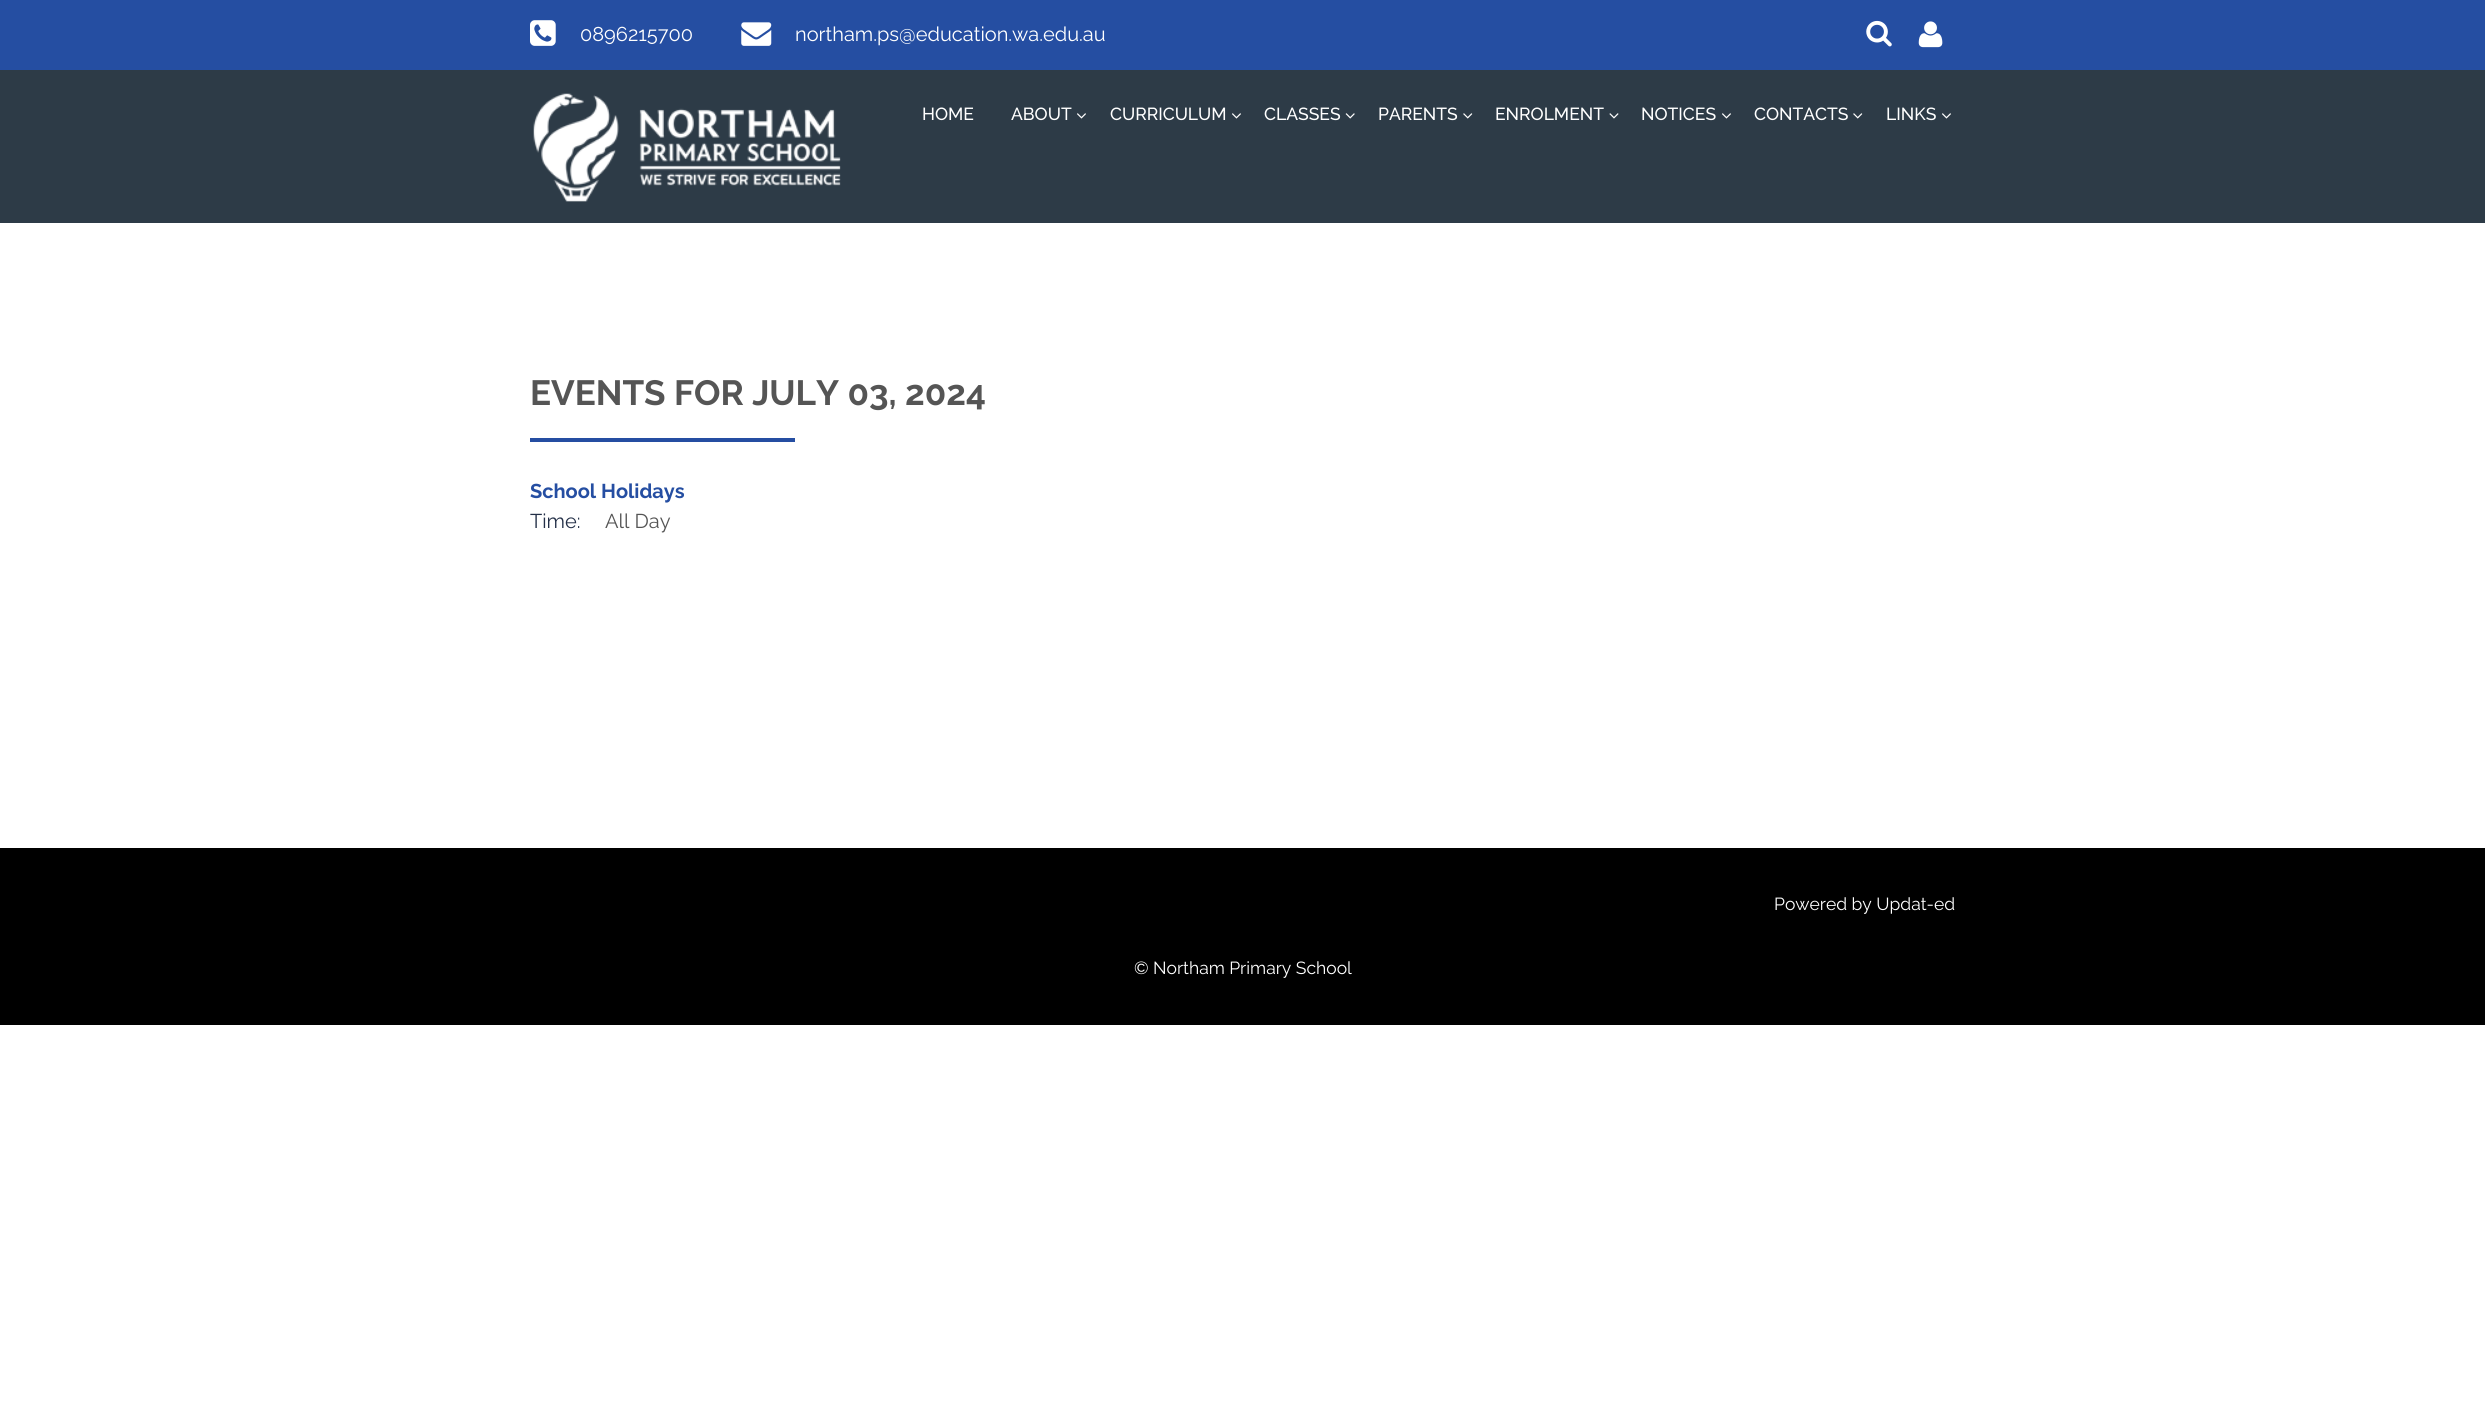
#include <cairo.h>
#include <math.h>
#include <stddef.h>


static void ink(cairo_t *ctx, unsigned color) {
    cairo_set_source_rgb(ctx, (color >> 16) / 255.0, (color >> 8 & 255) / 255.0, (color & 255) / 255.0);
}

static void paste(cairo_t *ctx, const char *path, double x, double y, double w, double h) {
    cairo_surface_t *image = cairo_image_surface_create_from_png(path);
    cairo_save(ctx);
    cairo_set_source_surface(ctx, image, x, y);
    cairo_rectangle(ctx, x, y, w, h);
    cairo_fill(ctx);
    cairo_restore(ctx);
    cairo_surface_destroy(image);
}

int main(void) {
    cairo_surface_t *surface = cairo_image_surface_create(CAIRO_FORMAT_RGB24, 2485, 1404);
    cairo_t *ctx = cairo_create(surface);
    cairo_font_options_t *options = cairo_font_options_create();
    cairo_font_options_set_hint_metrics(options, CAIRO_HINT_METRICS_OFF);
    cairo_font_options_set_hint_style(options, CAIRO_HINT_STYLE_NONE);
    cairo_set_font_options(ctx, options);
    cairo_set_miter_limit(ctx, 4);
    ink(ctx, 0xFFFFFF);
    cairo_paint(ctx);
    ink(ctx, 0x254EA2);
    cairo_rectangle(ctx, 0, 0, 2485, 70);
    cairo_fill(ctx);
    paste(ctx, "media/1.png", 530, 20, 26, 26);
    cairo_select_font_face(ctx, "Raleway", CAIRO_FONT_SLANT_NORMAL, CAIRO_FONT_WEIGHT_NORMAL);
    cairo_set_font_size(ctx, 20);
    ink(ctx, 0xFFFFFF);
    cairo_move_to(ctx, 580, 41);
    cairo_show_text(ctx, "0896215700");
    paste(ctx, "media/2.png", 741, 22, 31, 24);
    cairo_move_to(ctx, 795, 41);
    cairo_show_text(ctx, "northam.ps@education.wa.edu.au");
    paste(ctx, "media/3.png", 1866, 20, 26, 27);
    paste(ctx, "media/4.png", 1918, 21, 25, 27);
    ink(ctx, 0x2D3B47);
    cairo_rectangle(ctx, 0, 70, 2485, 153);
    cairo_fill(ctx);
    paste(ctx, "media/5.png", 533, 93, 308, 109);
    cairo_select_font_face(ctx, "Raleway Medium", CAIRO_FONT_SLANT_NORMAL, CAIRO_FONT_WEIGHT_NORMAL);
    cairo_set_font_size(ctx, 17.5);
    ink(ctx, 0xFFFFFF);
    cairo_move_to(ctx, 922, 120);
    cairo_show_text(ctx, "HOME");
    cairo_move_to(ctx, 1011, 120);
    cairo_show_text(ctx, "ABOUT");
    paste(ctx, "media/6.png", 1077, 113, 9, 6);
    cairo_move_to(ctx, 1110, 120);
    cairo_show_text(ctx, "CURRICULUM");
    paste(ctx, "media/6.png", 1232, 113, 9, 6);
    cairo_move_to(ctx, 1264, 120);
    cairo_show_text(ctx, "CLASSES");
    paste(ctx, "media/7.png", 1345, 113, 10, 6);
    cairo_move_to(ctx, 1378, 120);
    cairo_show_text(ctx, "PARENTS");
    paste(ctx, "media/8.png", 1463, 113, 10, 6);
    cairo_move_to(ctx, 1495, 120);
    cairo_show_text(ctx, "ENROLMENT");
    paste(ctx, "media/9.png", 1609, 113, 10, 6);
    cairo_move_to(ctx, 1641, 120);
    cairo_show_text(ctx, "NOTICES");
    paste(ctx, "media/6.png", 1722, 113, 9, 6);
    cairo_move_to(ctx, 1754, 120);
    cairo_show_text(ctx, "CONTACTS");
    paste(ctx, "media/8.png", 1853, 113, 10, 6);
    cairo_move_to(ctx, 1886, 120);
    cairo_show_text(ctx, "LINKS");
    paste(ctx, "media/6.png", 1942, 113, 9, 6);
    cairo_select_font_face(ctx, "Raleway", CAIRO_FONT_SLANT_NORMAL, CAIRO_FONT_WEIGHT_BOLD);
    cairo_set_font_size(ctx, 35);
    ink(ctx, 0x555555);
    cairo_move_to(ctx, 530, 405);
    cairo_show_text(ctx, "EVENTS FOR JULY 03, 2024");
    ink(ctx, 0x254EA2);
    cairo_rectangle(ctx, 530, 438, 265, 4);
    cairo_fill(ctx);
    cairo_set_font_size(ctx, 20);
    cairo_move_to(ctx, 530, 498);
    cairo_show_text(ctx, "School Holidays");
    cairo_select_font_face(ctx, "Raleway", CAIRO_FONT_SLANT_NORMAL, CAIRO_FONT_WEIGHT_NORMAL);
    ink(ctx, 0x232F47);
    cairo_move_to(ctx, 530, 528);
    cairo_show_text(ctx, "Time:");
    ink(ctx, 0x555555);
    cairo_move_to(ctx, 605, 528);
    cairo_show_text(ctx, "All Day");
    ink(ctx, 0x000000);
    cairo_rectangle(ctx, 0, 848, 2485, 177);
    cairo_fill(ctx);
    cairo_set_font_size(ctx, 17.5);
    ink(ctx, 0xFFFFFF);
    cairo_move_to(ctx, 1774, 910);
    cairo_show_text(ctx, "Powered by Updat-ed");
    cairo_move_to(ctx, 1134, 974);
    cairo_show_text(ctx, "© Northam Primary School");
    cairo_surface_write_to_png(surface, "image.png");
    cairo_font_options_destroy(options);
    cairo_destroy(ctx);
    cairo_surface_destroy(surface);
    return 0;
}
